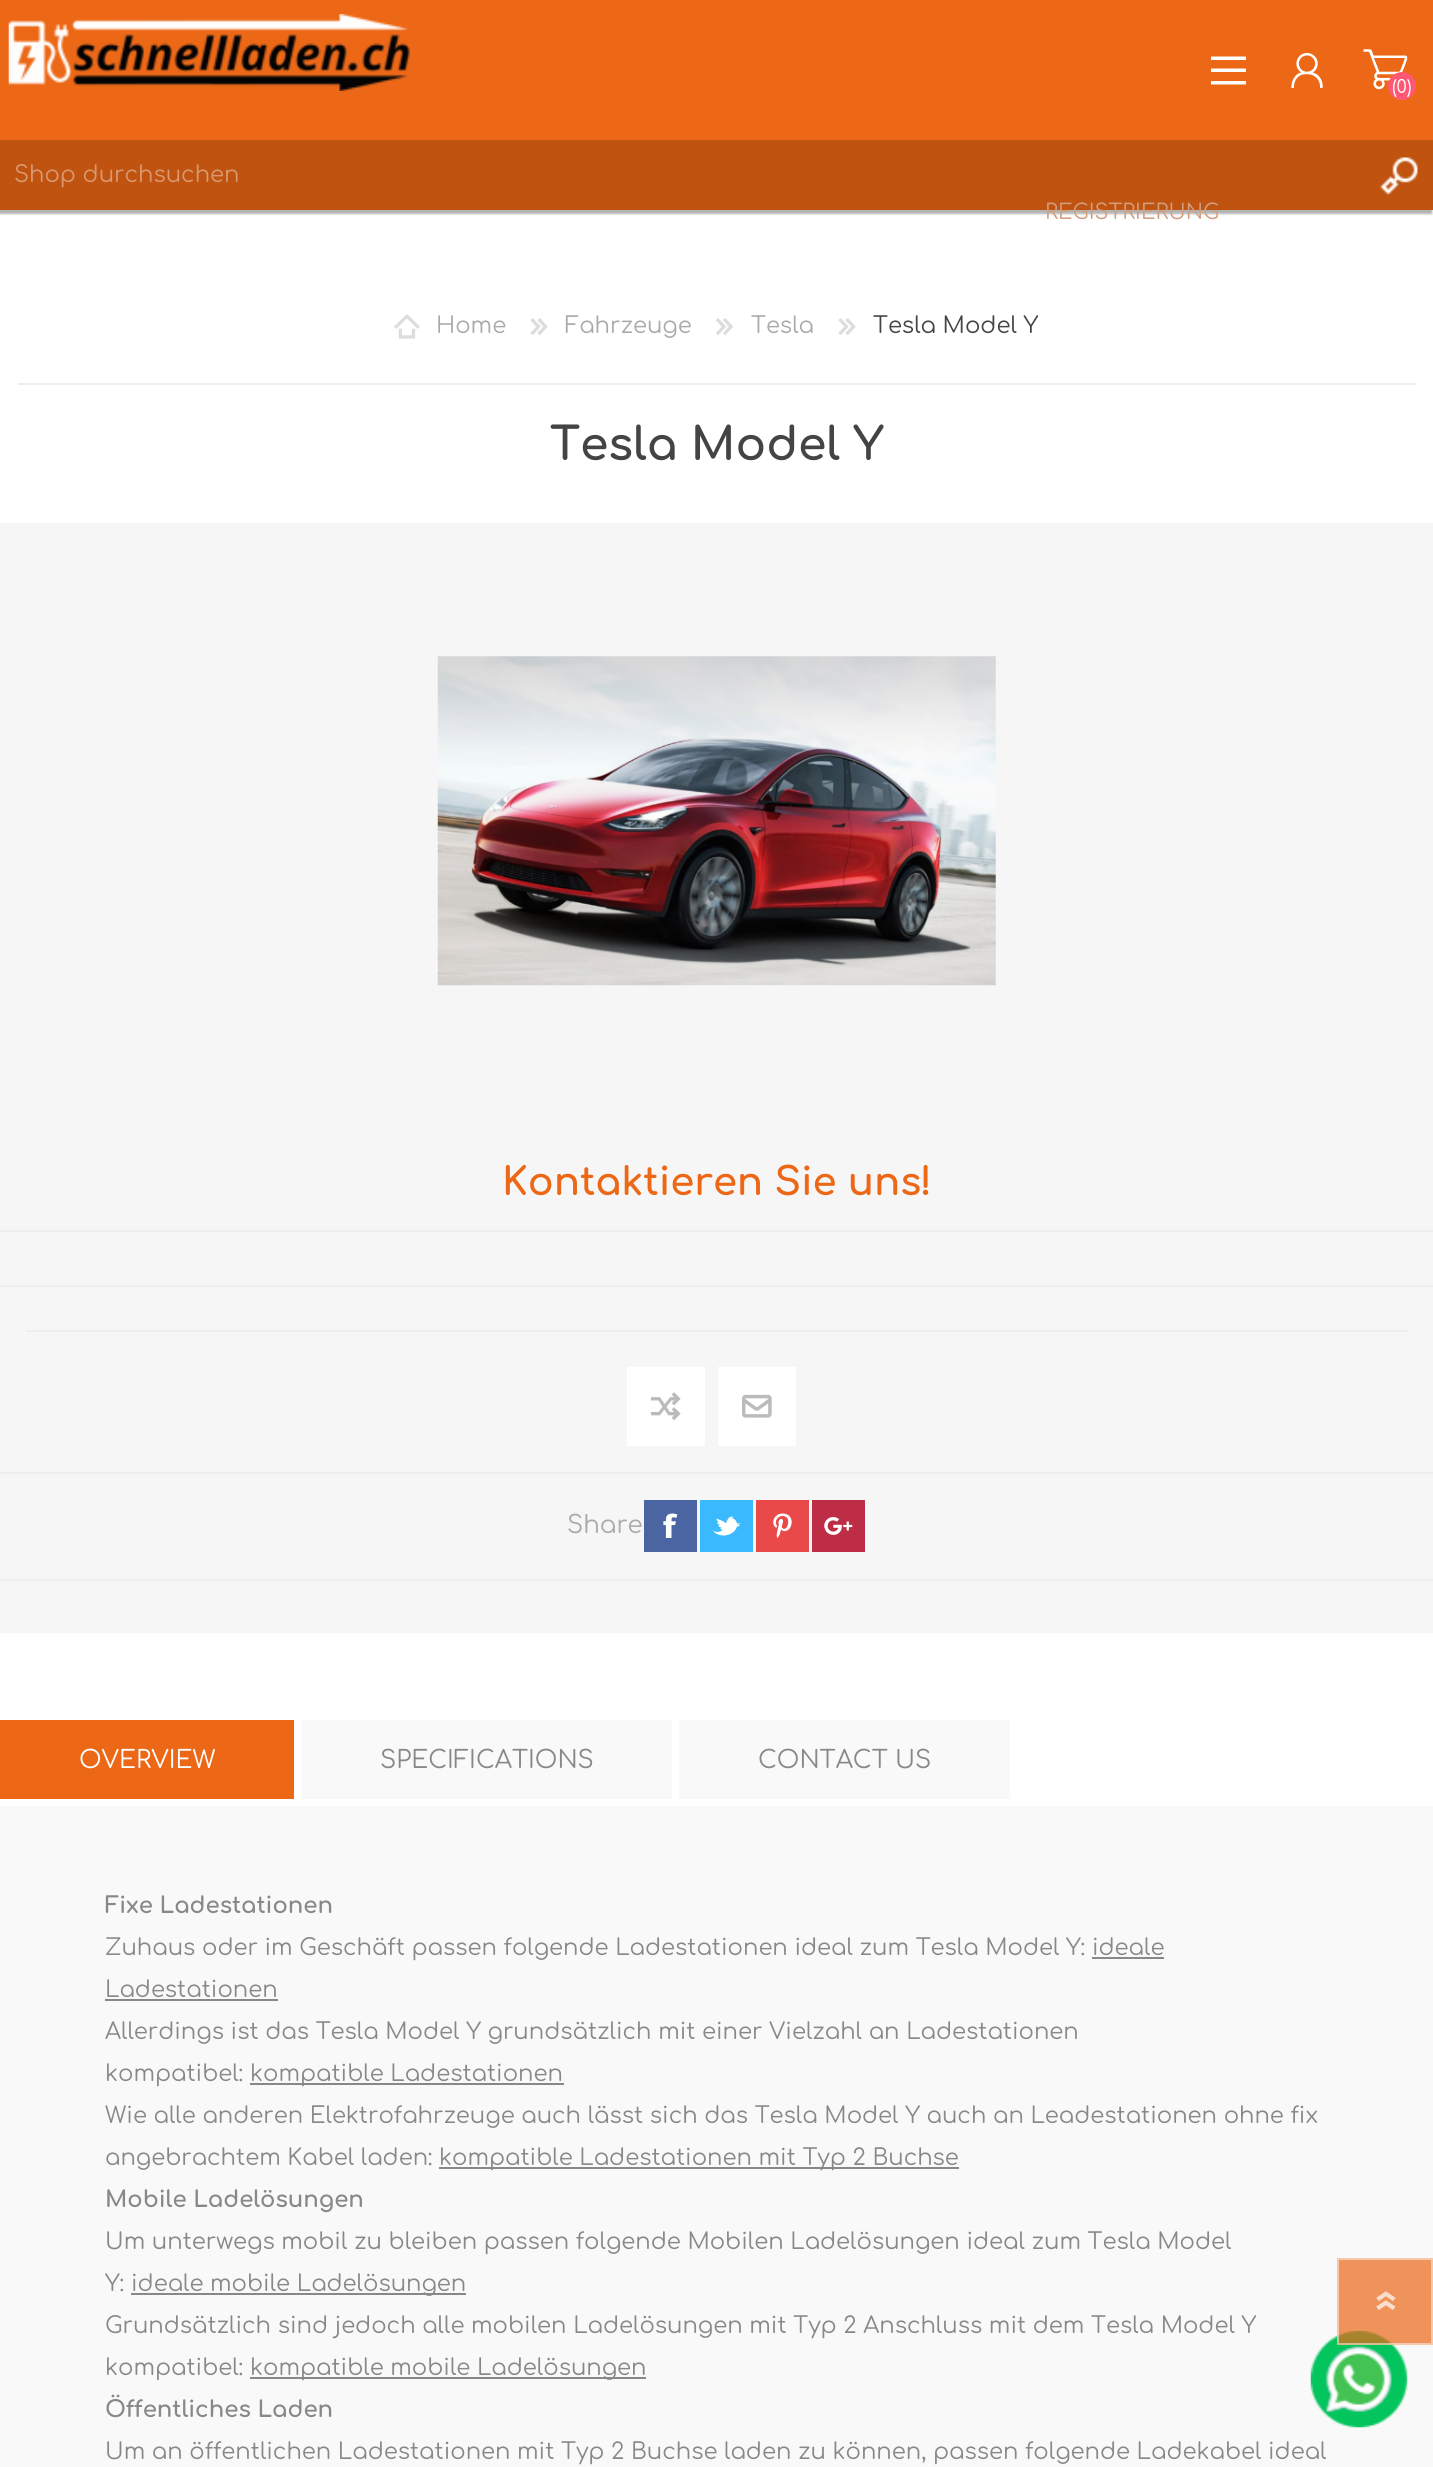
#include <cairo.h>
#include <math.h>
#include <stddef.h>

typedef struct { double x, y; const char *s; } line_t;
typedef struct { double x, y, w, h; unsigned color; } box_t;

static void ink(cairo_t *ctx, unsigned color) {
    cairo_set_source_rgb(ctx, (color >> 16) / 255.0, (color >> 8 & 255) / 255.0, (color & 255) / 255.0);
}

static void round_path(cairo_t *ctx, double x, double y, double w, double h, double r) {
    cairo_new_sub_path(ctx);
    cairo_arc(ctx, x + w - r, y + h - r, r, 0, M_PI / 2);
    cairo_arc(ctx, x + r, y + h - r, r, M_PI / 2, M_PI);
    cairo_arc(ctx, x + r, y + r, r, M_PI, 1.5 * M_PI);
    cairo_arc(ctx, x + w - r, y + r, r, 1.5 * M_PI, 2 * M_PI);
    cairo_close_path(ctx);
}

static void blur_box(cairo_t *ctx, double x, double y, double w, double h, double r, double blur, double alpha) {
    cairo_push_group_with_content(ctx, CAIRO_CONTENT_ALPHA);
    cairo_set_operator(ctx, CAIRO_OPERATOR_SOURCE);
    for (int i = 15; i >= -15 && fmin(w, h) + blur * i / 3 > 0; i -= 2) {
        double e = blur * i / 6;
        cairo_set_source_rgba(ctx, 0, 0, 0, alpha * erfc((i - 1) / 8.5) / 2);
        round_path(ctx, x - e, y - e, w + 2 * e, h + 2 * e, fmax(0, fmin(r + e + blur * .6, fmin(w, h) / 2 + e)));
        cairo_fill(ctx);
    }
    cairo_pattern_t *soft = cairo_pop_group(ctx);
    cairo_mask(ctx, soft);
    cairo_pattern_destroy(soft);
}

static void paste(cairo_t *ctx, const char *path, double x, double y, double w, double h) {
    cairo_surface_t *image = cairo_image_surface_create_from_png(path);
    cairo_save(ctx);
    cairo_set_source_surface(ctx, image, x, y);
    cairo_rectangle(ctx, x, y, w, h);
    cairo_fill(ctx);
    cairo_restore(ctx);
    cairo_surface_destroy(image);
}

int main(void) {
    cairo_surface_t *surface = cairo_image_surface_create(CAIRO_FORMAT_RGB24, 1433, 2467);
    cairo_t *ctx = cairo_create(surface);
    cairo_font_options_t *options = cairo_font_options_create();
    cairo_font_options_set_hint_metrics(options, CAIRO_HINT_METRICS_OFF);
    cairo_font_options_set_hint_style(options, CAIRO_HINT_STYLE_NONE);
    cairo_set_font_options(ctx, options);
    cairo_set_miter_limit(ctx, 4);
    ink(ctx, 0xFFFFFF);
    cairo_paint(ctx);
    ink(ctx, 0xEC6817);
    cairo_rectangle(ctx, 0, 0, 1433, 140);
    cairo_fill(ctx);
    paste(ctx, "media/1.png", 8, 14, 402, 77);
    ink(ctx, 0x000000);
    blur_box(ctx, -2, 144, 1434, 70, 0, 1, 0.3);
    ink(ctx, 0xC05310);
    cairo_rectangle(ctx, 0, 140, 1433, 70);
    cairo_fill(ctx);
    cairo_select_font_face(ctx, "Comfortaa", CAIRO_FONT_SLANT_NORMAL, CAIRO_FONT_WEIGHT_NORMAL);
    cairo_set_font_size(ctx, 22.75);
    ink(ctx, 0xD99870);
    cairo_move_to(ctx, 14, 182);
    cairo_show_text(ctx, "Shop durchsuchen");
    paste(ctx, "media/2.png", 1380, 157, 38, 38);
    ink(ctx, 0xFFFFFF);
    cairo_new_path(ctx);
    cairo_move_to(ctx, 1211, 56.5);
    cairo_line_to(ctx, 1211, 60);
    cairo_line_to(ctx, 1246, 60);
    cairo_line_to(ctx, 1246, 56.5);
    cairo_close_path(ctx);
    cairo_move_to(ctx, 1211, 72);
    cairo_line_to(ctx, 1246, 72);
    cairo_line_to(ctx, 1246, 68.5);
    cairo_line_to(ctx, 1211, 68.5);
    cairo_close_path(ctx);
    cairo_move_to(ctx, 1211, 84.5);
    cairo_line_to(ctx, 1246, 84.5);
    cairo_line_to(ctx, 1246, 81);
    cairo_line_to(ctx, 1211, 81);
    cairo_close_path(ctx);
    cairo_fill(ctx);
    paste(ctx, "media/3.png", 1363, 49, 45, 41);
    ink(ctx, 0xFF5874);
    cairo_arc(ctx, 1402, 86, 14, 0, 2 * M_PI);
    cairo_fill(ctx);
    cairo_set_font_size(ctx, 18);
    ink(ctx, 0xFFFFFF);
    cairo_move_to(ctx, 1392, 93);
    cairo_show_text(ctx, "(0)");
    paste(ctx, "media/4.png", 1291, 53, 32, 35);
    cairo_set_font_size(ctx, 21);
    ink(ctx, 0xD09F80);
    cairo_move_to(ctx, 1045, 219);
    cairo_show_text(ctx, "REGISTRIERUNG");
    ink(ctx, 0xEEEEEE);
    cairo_rectangle(ctx, 18, 383, 1398, 2);
    cairo_fill(ctx);
    paste(ctx, "media/5.png", 394, 314, 26, 25);
    cairo_set_font_size(ctx, 22.75);
    ink(ctx, 0xAAAAAA);
    cairo_move_to(ctx, 436, 333);
    cairo_show_text(ctx, "Home");
    paste(ctx, "media/6.png", 530, 318, 18, 17);
    cairo_move_to(ctx, 565, 333);
    cairo_show_text(ctx, "Fahrzeuge");
    paste(ctx, "media/7.png", 716, 318, 17, 18);
    cairo_move_to(ctx, 751, 333);
    cairo_show_text(ctx, "Tesla");
    paste(ctx, "media/6.png", 838, 318, 18, 17);
    ink(ctx, 0x444444);
    cairo_move_to(ctx, 873, 333);
    cairo_show_text(ctx, "Tesla Model Y");
    cairo_select_font_face(ctx, "Comfortaa", CAIRO_FONT_SLANT_NORMAL, CAIRO_FONT_WEIGHT_BOLD);
    cairo_set_font_size(ctx, 45.5);
    cairo_move_to(ctx, 550, 460);
    cairo_show_text(ctx, "Tesla Model Y");
    ink(ctx, 0xF6F6F6);
    cairo_rectangle(ctx, 0, 523, 1433, 1110);
    cairo_fill(ctx);
    paste(ctx, "media/8.png", 437, 656, 559, 330);
    ink(ctx, 0xEEEEEE);
    cairo_rectangle(ctx, 0, 1230, 1433, 2);
    cairo_fill(ctx);
    cairo_set_font_size(ctx, 38.5);
    ink(ctx, 0xEC6817);
    cairo_move_to(ctx, 502, 1195);
    cairo_show_text(ctx, "Kontaktieren Sie uns!");
    {
        static const box_t items[] = {
            {0, 1285, 1433, 2, 0xEEEEEE},
            {0, 1472, 1433, 2, 0xEEEEEE},
            {26, 1330, 1381, 2, 0xEEEEEE},
            {627, 1367, 78, 79, 0xFFFFFF},
        };
        for (size_t i = 0; i < sizeof items / sizeof *items; i++) {
            ink(ctx, items[i].color);
            cairo_rectangle(ctx, items[i].x, items[i].y, items[i].w, items[i].h);
            cairo_fill(ctx);
        }
    }
    paste(ctx, "media/9.png", 651, 1392, 30, 28);
    cairo_rectangle(ctx, 718, 1367, 78, 79);
    cairo_fill(ctx);
    paste(ctx, "media/10.png", 742, 1394, 30, 24);
    ink(ctx, 0xEEEEEE);
    cairo_rectangle(ctx, 0, 1579, 1433, 2);
    cairo_fill(ctx);
    cairo_select_font_face(ctx, "Comfortaa", CAIRO_FONT_SLANT_NORMAL, CAIRO_FONT_WEIGHT_NORMAL);
    cairo_set_font_size(ctx, 24.5);
    ink(ctx, 0xAAAAAA);
    cairo_move_to(ctx, 567, 1533);
    cairo_show_text(ctx, "Share");
    ink(ctx, 0x4A65A2);
    cairo_rectangle(ctx, 644, 1500, 53, 52);
    cairo_fill(ctx);
    paste(ctx, "media/11.png", 663, 1513, 15, 25);
    ink(ctx, 0x3ABAFD);
    cairo_rectangle(ctx, 700, 1500, 53, 52);
    cairo_fill(ctx);
    paste(ctx, "media/12.png", 712, 1516, 29, 20);
    ink(ctx, 0xE94949);
    cairo_rectangle(ctx, 756, 1500, 53, 52);
    cairo_fill(ctx);
    paste(ctx, "media/13.png", 773, 1513, 19, 25);
    ink(ctx, 0xBD2D45);
    cairo_rectangle(ctx, 812, 1500, 53, 52);
    cairo_fill(ctx);
    paste(ctx, "media/14.png", 824, 1517, 29, 18);
    ink(ctx, 0xEC6817);
    cairo_rectangle(ctx, 0, 1720, 294, 79);
    cairo_fill(ctx);
    ink(ctx, 0xFFFFFF);
    cairo_move_to(ctx, 79, 1768);
    cairo_show_text(ctx, "OVERVIEW");
    ink(ctx, 0xF9F9F9);
    cairo_rectangle(ctx, 301, 1720, 371, 79);
    cairo_fill(ctx);
    ink(ctx, 0x888888);
    cairo_move_to(ctx, 380, 1768);
    cairo_show_text(ctx, "SPECIFICATIONS");
    ink(ctx, 0xF9F9F9);
    cairo_rectangle(ctx, 679, 1720, 331, 79);
    cairo_fill(ctx);
    ink(ctx, 0x888888);
    cairo_move_to(ctx, 758, 1768);
    cairo_show_text(ctx, "CONTACT US");
    ink(ctx, 0xF9F9F9);
    cairo_rectangle(ctx, 0, 1806, 1433, 661);
    cairo_fill(ctx);
    cairo_select_font_face(ctx, "Comfortaa", CAIRO_FONT_SLANT_NORMAL, CAIRO_FONT_WEIGHT_BOLD);
    cairo_set_font_size(ctx, 22.75);
    ink(ctx, 0x888888);
    cairo_move_to(ctx, 105, 1913);
    cairo_show_text(ctx, "Fixe Ladestationen");
    cairo_select_font_face(ctx, "Comfortaa", CAIRO_FONT_SLANT_NORMAL, CAIRO_FONT_WEIGHT_NORMAL);
    cairo_move_to(ctx, 105, 1955);
    cairo_show_text(ctx, "Zuhaus oder im Geschäft passen folgende Ladestationen ideal zum Tesla Model Y: ideale");
    cairo_move_to(ctx, 105, 1997);
    cairo_show_text(ctx, "Ladestationen");
    cairo_rectangle(ctx, 1092, 1957, 72, 2);
    cairo_fill(ctx);
    cairo_rectangle(ctx, 105, 1999, 173, 2);
    cairo_fill(ctx);
    cairo_move_to(ctx, 105, 2039);
    cairo_show_text(ctx, "Allerdings ist das Tesla Model Y grundsätzlich mit einer Vielzahl an Ladestationen");
    cairo_move_to(ctx, 105, 2081);
    cairo_show_text(ctx, "kompatibel:");
    cairo_rectangle(ctx, 250, 2083, 314, 2);
    cairo_fill(ctx);
    {
        static const line_t items[] = {
            {250, 2081, "kompatible Ladestationen"},
            {105, 2123, "Wie alle anderen Elektrofahrzeuge auch lässt sich das Tesla Model Y auch an Leadestationen ohne fix"},
            {105, 2165, "angebrachtem Kabel laden:"},
        };
        for (size_t i = 0; i < sizeof items / sizeof *items; i++) {
            cairo_move_to(ctx, items[i].x, items[i].y);
            cairo_show_text(ctx, items[i].s);
        }
    }
    cairo_rectangle(ctx, 439, 2167, 520, 2);
    cairo_fill(ctx);
    cairo_move_to(ctx, 439, 2165);
    cairo_show_text(ctx, "kompatible Ladestationen mit Typ 2 Buchse");
    cairo_select_font_face(ctx, "Comfortaa", CAIRO_FONT_SLANT_NORMAL, CAIRO_FONT_WEIGHT_BOLD);
    cairo_move_to(ctx, 105, 2207);
    cairo_show_text(ctx, "Mobile Ladelösungen");
    cairo_select_font_face(ctx, "Comfortaa", CAIRO_FONT_SLANT_NORMAL, CAIRO_FONT_WEIGHT_NORMAL);
    cairo_move_to(ctx, 105, 2249);
    cairo_show_text(ctx, "Um unterwegs mobil zu bleiben passen folgende Mobilen Ladelösungen ideal zum Tesla Model");
    cairo_move_to(ctx, 105, 2291);
    cairo_show_text(ctx, "Y:");
    cairo_rectangle(ctx, 131, 2293, 335, 2);
    cairo_fill(ctx);
    {
        static const line_t items[] = {
            {131, 2291, "ideale mobile Ladelösungen"},
            {105, 2333, "Grundsätzlich sind jedoch alle mobilen Ladelösungen mit Typ 2 Anschluss mit dem Tesla Model Y"},
            {105, 2375, "kompatibel:"},
        };
        for (size_t i = 0; i < sizeof items / sizeof *items; i++) {
            cairo_move_to(ctx, items[i].x, items[i].y);
            cairo_show_text(ctx, items[i].s);
        }
    }
    cairo_rectangle(ctx, 250, 2377, 396, 2);
    cairo_fill(ctx);
    cairo_move_to(ctx, 250, 2375);
    cairo_show_text(ctx, "kompatible mobile Ladelösungen");
    cairo_select_font_face(ctx, "Comfortaa", CAIRO_FONT_SLANT_NORMAL, CAIRO_FONT_WEIGHT_BOLD);
    cairo_move_to(ctx, 105, 2417);
    cairo_show_text(ctx, "Öffentliches Laden");
    cairo_select_font_face(ctx, "Comfortaa", CAIRO_FONT_SLANT_NORMAL, CAIRO_FONT_WEIGHT_NORMAL);
    cairo_move_to(ctx, 105, 2459);
    cairo_show_text(ctx, "Um an öffentlichen Ladestationen mit Typ 2 Buchse laden zu können, passen folgende Ladekabel ideal");
    paste(ctx, "media/16.png", 1310, 2331, 98, 97);
    cairo_set_source_rgba(ctx, 0.925, 0.408, 0.09, 0.7);
    cairo_rectangle(ctx, 1337, 2258, 96, 87);
    cairo_fill(ctx);
    cairo_rectangle(ctx, 1338, 2259, 94, 85);
    cairo_set_source_rgba(ctx, 1, 1, 1, 0.49);
    cairo_stroke(ctx);
    paste(ctx, "media/15.png", 1376, 2291, 20, 19);
    cairo_surface_write_to_png(surface, "image.png");
    cairo_font_options_destroy(options);
    cairo_destroy(ctx);
    cairo_surface_destroy(surface);
    return 0;
}
